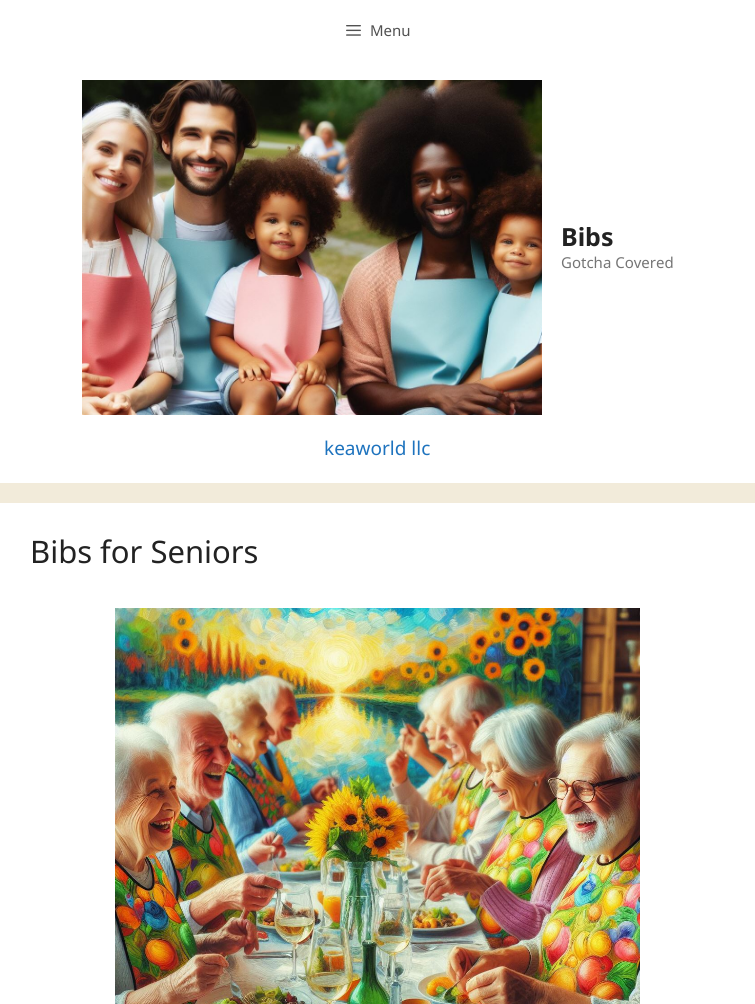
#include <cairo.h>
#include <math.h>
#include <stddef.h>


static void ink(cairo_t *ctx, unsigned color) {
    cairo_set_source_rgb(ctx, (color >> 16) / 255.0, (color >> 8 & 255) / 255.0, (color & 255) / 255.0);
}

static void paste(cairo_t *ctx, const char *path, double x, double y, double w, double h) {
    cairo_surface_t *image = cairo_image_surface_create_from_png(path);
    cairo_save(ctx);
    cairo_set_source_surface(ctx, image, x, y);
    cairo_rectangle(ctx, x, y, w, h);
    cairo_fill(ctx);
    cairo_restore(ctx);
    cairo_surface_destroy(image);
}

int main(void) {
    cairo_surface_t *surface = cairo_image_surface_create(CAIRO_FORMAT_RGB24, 755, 1004);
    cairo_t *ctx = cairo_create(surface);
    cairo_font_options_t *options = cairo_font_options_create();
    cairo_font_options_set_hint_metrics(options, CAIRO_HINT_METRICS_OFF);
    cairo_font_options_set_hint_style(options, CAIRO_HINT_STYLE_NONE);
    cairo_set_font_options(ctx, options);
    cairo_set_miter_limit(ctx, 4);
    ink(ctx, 0xF2EBDA);
    cairo_paint(ctx);
    ink(ctx, 0xFFFFFF);
    cairo_rectangle(ctx, 0, 0, 755, 483);
    cairo_fill(ctx);
    paste(ctx, "media/1.png", 346, 25, 15, 11);
    cairo_select_font_face(ctx, "Noto Sans", CAIRO_FONT_SLANT_NORMAL, CAIRO_FONT_WEIGHT_NORMAL);
    cairo_set_font_size(ctx, 15);
    ink(ctx, 0x515151);
    cairo_move_to(ctx, 370, 36);
    cairo_show_text(ctx, "Menu");
    paste(ctx, "media/2.png", 82, 80, 460, 335);
    cairo_select_font_face(ctx, "Noto Sans", CAIRO_FONT_SLANT_NORMAL, CAIRO_FONT_WEIGHT_BOLD);
    cairo_set_font_size(ctx, 25);
    ink(ctx, 0x222222);
    cairo_move_to(ctx, 561, 246);
    cairo_show_text(ctx, "Bibs");
    cairo_select_font_face(ctx, "Noto Sans", CAIRO_FONT_SLANT_NORMAL, CAIRO_FONT_WEIGHT_NORMAL);
    cairo_set_font_size(ctx, 15);
    ink(ctx, 0x757575);
    cairo_move_to(ctx, 561, 268);
    cairo_show_text(ctx, "Gotcha Covered");
    cairo_set_font_size(ctx, 19);
    ink(ctx, 0x1E73BE);
    cairo_move_to(ctx, 324, 455);
    cairo_show_text(ctx, "keaworld llc");
    ink(ctx, 0xFFFFFF);
    cairo_rectangle(ctx, 0, 503, 755, 501);
    cairo_fill(ctx);
    cairo_set_font_size(ctx, 31);
    ink(ctx, 0x222222);
    cairo_move_to(ctx, 30, 563);
    cairo_show_text(ctx, "Bibs for Seniors");
    paste(ctx, "media/3.png", 115, 608, 525, 396);
    cairo_surface_write_to_png(surface, "image.png");
    cairo_font_options_destroy(options);
    cairo_destroy(ctx);
    cairo_surface_destroy(surface);
    return 0;
}
